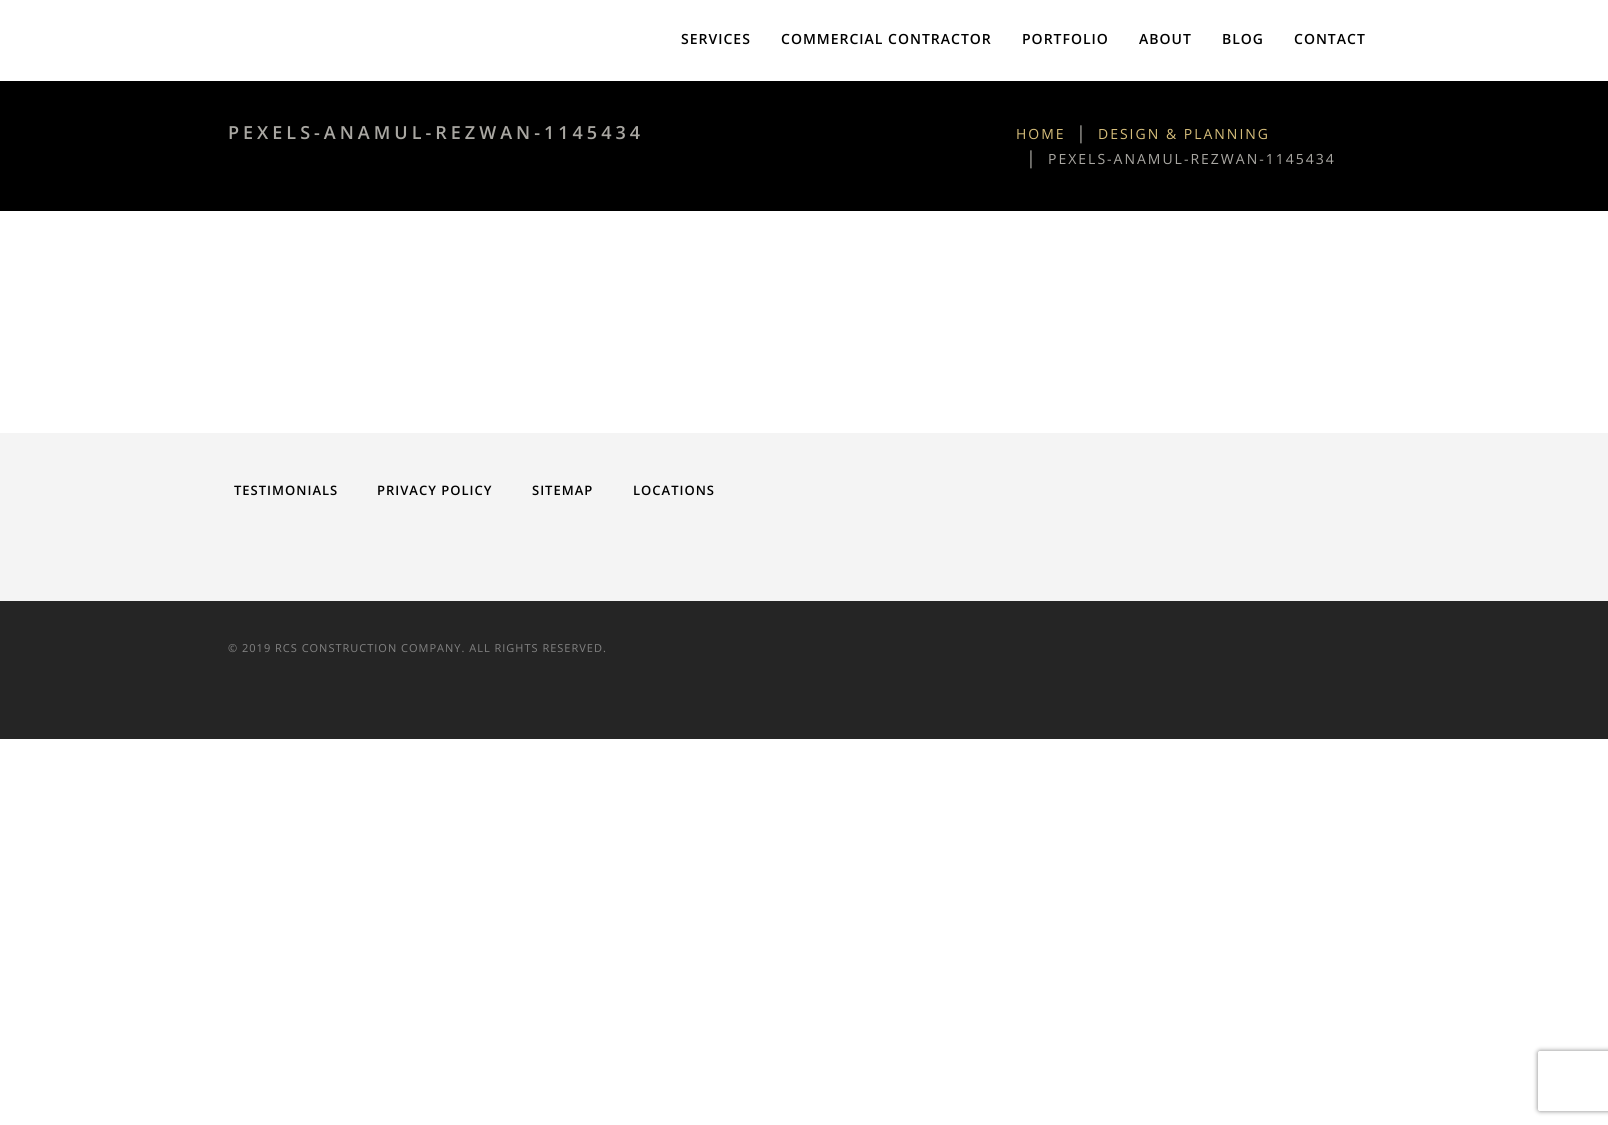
#include <cairo.h>
#include <math.h>
#include <stddef.h>

typedef struct { double x, y; const char *s; } line_t;

static void ink(cairo_t *ctx, unsigned color) {
    cairo_set_source_rgb(ctx, (color >> 16) / 255.0, (color >> 8 & 255) / 255.0, (color & 255) / 255.0);
}

static void write_spaced(cairo_t *ctx, double x, double y, const char *s, double letter, double word) {
    cairo_move_to(ctx, x, y);
    while (*s) {
        char ch[5] = {0};
        int n = 0;
        do ch[n++] = *s++; while ((*s & 0xC0) == 0x80);
        cairo_show_text(ctx, ch);
        cairo_rel_move_to(ctx, letter + word * (*ch == ' '), 0);
    }
}

static void round_path(cairo_t *ctx, double x, double y, double w, double h, double r) {
    cairo_new_sub_path(ctx);
    cairo_arc(ctx, x + w - r, y + h - r, r, 0, M_PI / 2);
    cairo_arc(ctx, x + r, y + h - r, r, M_PI / 2, M_PI);
    cairo_arc(ctx, x + r, y + r, r, M_PI, 1.5 * M_PI);
    cairo_arc(ctx, x + w - r, y + r, r, 1.5 * M_PI, 2 * M_PI);
    cairo_close_path(ctx);
}

static void blur_box(cairo_t *ctx, double x, double y, double w, double h, double r, double blur, double alpha) {
    cairo_push_group_with_content(ctx, CAIRO_CONTENT_ALPHA);
    cairo_set_operator(ctx, CAIRO_OPERATOR_SOURCE);
    for (int i = 15; i >= -15 && fmin(w, h) + blur * i / 3 > 0; i -= 2) {
        double e = blur * i / 6;
        cairo_set_source_rgba(ctx, 0, 0, 0, alpha * erfc((i - 1) / 8.5) / 2);
        round_path(ctx, x - e, y - e, w + 2 * e, h + 2 * e, fmax(0, fmin(r + e + blur * .6, fmin(w, h) / 2 + e)));
        cairo_fill(ctx);
    }
    cairo_pattern_t *soft = cairo_pop_group(ctx);
    cairo_mask(ctx, soft);
    cairo_pattern_destroy(soft);
}

int main(void) {
    cairo_surface_t *surface = cairo_image_surface_create(CAIRO_FORMAT_RGB24, 1608, 1125);
    cairo_t *ctx = cairo_create(surface);
    cairo_font_options_t *options = cairo_font_options_create();
    cairo_font_options_set_hint_metrics(options, CAIRO_HINT_METRICS_OFF);
    cairo_font_options_set_hint_style(options, CAIRO_HINT_STYLE_NONE);
    cairo_set_font_options(ctx, options);
    cairo_set_miter_limit(ctx, 4);
    ink(ctx, 0xFFFFFF);
    cairo_paint(ctx);
    cairo_select_font_face(ctx, "Open Sans SemiBold", CAIRO_FONT_SLANT_NORMAL, CAIRO_FONT_WEIGHT_NORMAL);
    cairo_set_font_size(ctx, 14);
    ink(ctx, 0x000000);
    {
        static const line_t items[] = {
            {681, 44, "SERVICES"},
            {781, 44, "COMMERCIAL CONTRACTOR"},
            {1022, 44, "PORTFOLIO"},
            {1139, 44, "ABOUT"},
            {1222, 44, "BLOG"},
            {1294, 44, "CONTACT"},
        };
        for (size_t i = 0; i < sizeof items / sizeof *items; i++) {
            write_spaced(ctx, items[i].x, items[i].y, items[i].s, 1, 0);
        }
    }
    cairo_rectangle(ctx, 0, 81, 1608, 130);
    cairo_fill(ctx);
    cairo_set_font_size(ctx, 18);
    ink(ctx, 0xA9A7A2);
    write_spaced(ctx, 228, 139, "PEXELS-ANAMUL-REZWAN-1145434", 4, 0);
    cairo_select_font_face(ctx, "Open Sans", CAIRO_FONT_SLANT_NORMAL, CAIRO_FONT_WEIGHT_NORMAL);
    cairo_set_font_size(ctx, 14);
    ink(ctx, 0xD5BD7A);
    write_spaced(ctx, 1016, 139, "HOME", 2, 0);
    cairo_set_font_size(ctx, 18);
    ink(ctx, 0xA9A7A2);
    write_spaced(ctx, 1076, 139, "|", 2, 0);
    cairo_set_font_size(ctx, 14);
    ink(ctx, 0xD5BD7A);
    write_spaced(ctx, 1098, 139, "DESIGN & PLANNING", 2, 0);
    cairo_set_font_size(ctx, 18);
    ink(ctx, 0xA9A7A2);
    write_spaced(ctx, 1026, 164, "|", 2, 0);
    cairo_set_font_size(ctx, 14);
    write_spaced(ctx, 1048, 164, "PEXELS-ANAMUL-REZWAN-1145434", 2, 0);
    ink(ctx, 0xF4F4F4);
    cairo_rectangle(ctx, 0, 433, 1608, 168);
    cairo_fill(ctx);
    cairo_select_font_face(ctx, "Open Sans SemiBold", CAIRO_FONT_SLANT_NORMAL, CAIRO_FONT_WEIGHT_NORMAL);
    cairo_set_font_size(ctx, 13);
    ink(ctx, 0x000000);
    {
        static const line_t items[] = {
            {234, 495, "TESTIMONIALS"},
            {377, 495, "PRIVACY POLICY"},
            {532, 495, "SITEMAP"},
            {633, 495, "LOCATIONS"},
        };
        for (size_t i = 0; i < sizeof items / sizeof *items; i++) {
            write_spaced(ctx, items[i].x, items[i].y, items[i].s, 1, 0);
        }
    }
    ink(ctx, 0x252525);
    cairo_rectangle(ctx, 0, 601, 1608, 138);
    cairo_fill(ctx);
    cairo_select_font_face(ctx, "Open Sans", CAIRO_FONT_SLANT_NORMAL, CAIRO_FONT_WEIGHT_NORMAL);
    cairo_set_font_size(ctx, 11);
    ink(ctx, 0x828282);
    write_spaced(ctx, 228, 652, "© 2019 RCS CONSTRUCTION COMPANY. ALL RIGHTS RESERVED.", 1, 0);
    cairo_save(ctx);
    cairo_set_fill_rule(ctx, CAIRO_FILL_RULE_EVEN_ODD);
    cairo_new_path(ctx);
    cairo_move_to(ctx, 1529, 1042);
    cairo_line_to(ctx, 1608, 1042);
    cairo_line_to(ctx, 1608, 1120);
    cairo_line_to(ctx, 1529, 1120);
    cairo_close_path(ctx);
    cairo_move_to(ctx, 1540, 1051);
    cairo_line_to(ctx, 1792, 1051);
    cairo_curve_to(ctx, 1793, 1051, 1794, 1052, 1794, 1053);
    cairo_line_to(ctx, 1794, 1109);
    cairo_curve_to(ctx, 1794, 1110, 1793, 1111, 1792, 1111);
    cairo_line_to(ctx, 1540, 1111);
    cairo_curve_to(ctx, 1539, 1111, 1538, 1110, 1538, 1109);
    cairo_line_to(ctx, 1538, 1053);
    cairo_curve_to(ctx, 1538, 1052, 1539, 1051, 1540, 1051);
    cairo_close_path(ctx);
    cairo_clip(ctx);
    ink(ctx, 0x808080);
    blur_box(ctx, 1538, 1051, 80, 60, 2, 2.5, 1);
    cairo_restore(ctx);
    cairo_surface_write_to_png(surface, "image.png");
    cairo_font_options_destroy(options);
    cairo_destroy(ctx);
    cairo_surface_destroy(surface);
    return 0;
}
